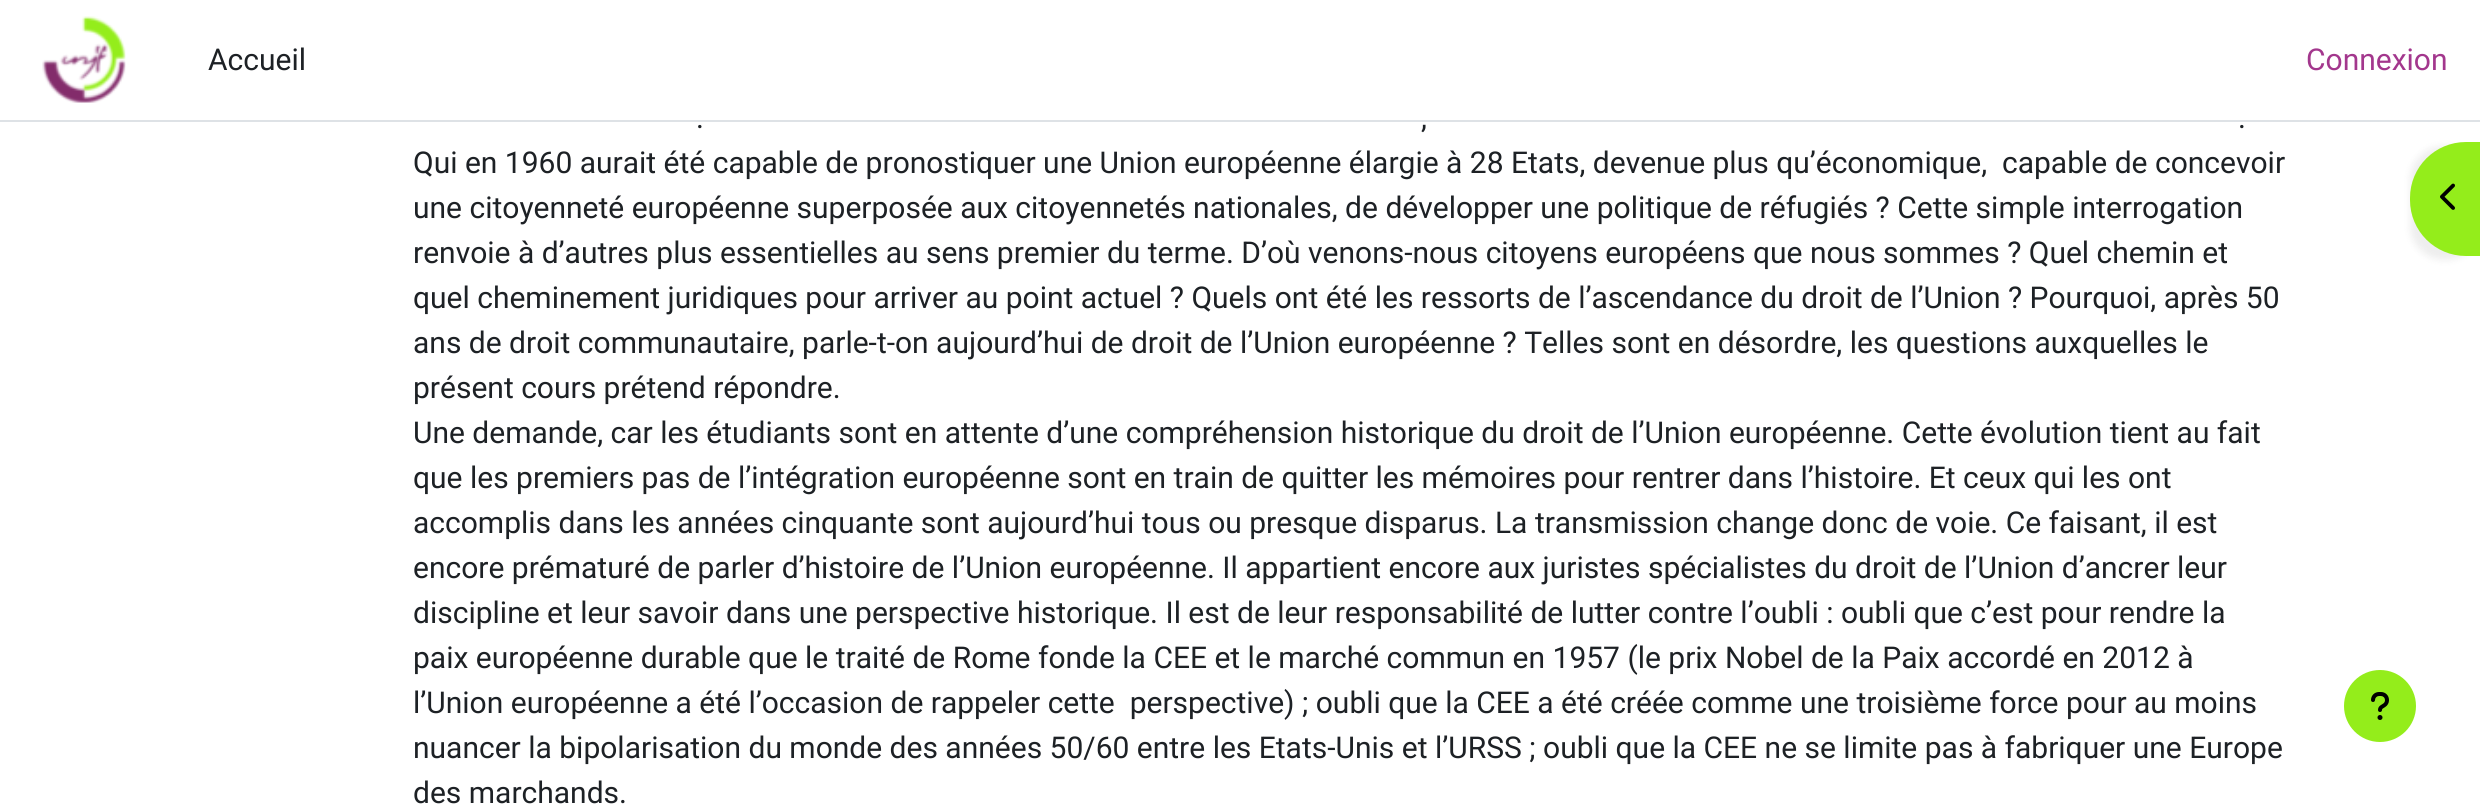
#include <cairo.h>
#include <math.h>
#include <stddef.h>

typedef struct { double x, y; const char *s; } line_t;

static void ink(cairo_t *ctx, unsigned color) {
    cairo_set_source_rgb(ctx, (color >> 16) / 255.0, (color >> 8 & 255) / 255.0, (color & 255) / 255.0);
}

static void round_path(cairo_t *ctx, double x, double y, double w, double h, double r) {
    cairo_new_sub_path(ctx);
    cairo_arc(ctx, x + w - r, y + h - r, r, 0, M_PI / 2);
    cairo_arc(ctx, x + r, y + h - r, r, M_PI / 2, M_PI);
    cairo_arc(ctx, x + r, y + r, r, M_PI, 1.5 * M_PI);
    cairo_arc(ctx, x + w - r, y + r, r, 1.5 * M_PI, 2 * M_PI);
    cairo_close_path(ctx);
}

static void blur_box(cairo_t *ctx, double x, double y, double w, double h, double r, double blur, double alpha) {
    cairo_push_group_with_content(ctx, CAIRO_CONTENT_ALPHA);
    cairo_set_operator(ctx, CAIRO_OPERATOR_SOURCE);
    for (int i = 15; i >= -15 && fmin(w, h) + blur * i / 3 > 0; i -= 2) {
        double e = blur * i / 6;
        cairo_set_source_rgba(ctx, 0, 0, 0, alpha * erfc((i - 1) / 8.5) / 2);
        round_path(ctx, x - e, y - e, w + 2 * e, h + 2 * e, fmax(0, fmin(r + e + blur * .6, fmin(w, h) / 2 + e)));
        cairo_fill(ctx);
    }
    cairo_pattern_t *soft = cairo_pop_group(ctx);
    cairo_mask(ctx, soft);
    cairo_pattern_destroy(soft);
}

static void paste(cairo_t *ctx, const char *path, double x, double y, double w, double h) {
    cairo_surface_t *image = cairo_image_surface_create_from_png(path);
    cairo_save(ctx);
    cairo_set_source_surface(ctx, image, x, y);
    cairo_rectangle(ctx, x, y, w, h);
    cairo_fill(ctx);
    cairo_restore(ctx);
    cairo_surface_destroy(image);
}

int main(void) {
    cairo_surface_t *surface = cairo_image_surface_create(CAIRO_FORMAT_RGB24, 2480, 806);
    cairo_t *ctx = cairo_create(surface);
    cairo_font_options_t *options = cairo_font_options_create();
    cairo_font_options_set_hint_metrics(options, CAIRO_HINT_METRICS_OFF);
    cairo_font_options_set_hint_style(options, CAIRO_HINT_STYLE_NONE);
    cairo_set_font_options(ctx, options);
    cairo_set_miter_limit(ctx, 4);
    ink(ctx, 0xFFFFFF);
    cairo_paint(ctx);
    ink(ctx, 0xDEE2E6);
    cairo_rectangle(ctx, 0, 120, 2480, 2);
    cairo_fill(ctx);
    paste(ctx, "media/1.png", 42, 16, 84, 87);
    cairo_select_font_face(ctx, "Roboto", CAIRO_FONT_SLANT_NORMAL, CAIRO_FONT_WEIGHT_NORMAL);
    cairo_set_font_size(ctx, 30);
    ink(ctx, 0x1D2125);
    cairo_move_to(ctx, 208, 70);
    cairo_show_text(ctx, "Accueil");
    ink(ctx, 0xA3378D);
    cairo_move_to(ctx, 2306, 70);
    cairo_show_text(ctx, "Connexion");
    ink(ctx, 0x1D2125);
    {
        static const line_t items[] = {
            {696, 128, "."},
            {1421, 128, ","},
            {2238, 128, "."},
            {413, 173, "Qui en 1960 aurait été capable de pronostiquer une Union européenne élargie à 28 Etats, devenue plus qu’économique,  capable de concevoir"},
            {413, 218, "une citoyenneté européenne superposée aux citoyennetés nationales, de développer une politique de réfugiés ? Cette simple interrogation"},
            {413, 263, "renvoie à d’autres plus essentielles au sens premier du terme. D’où venons-nous citoyens européens que nous sommes ? Quel chemin et"},
            {413, 308, "quel cheminement juridiques pour arriver au point actuel ? Quels ont été les ressorts de l’ascendance du droit de l’Union ? Pourquoi, après 50"},
            {413, 353, "ans de droit communautaire, parle-t-on aujourd’hui de droit de l’Union européenne ? Telles sont en désordre, les questions auxquelles le"},
            {413, 398, "présent cours prétend répondre."},
            {413, 443, "Une demande, car les étudiants sont en attente d’une compréhension historique du droit de l’Union européenne. Cette évolution tient au fait"},
            {413, 488, "que les premiers pas de l’intégration européenne sont en train de quitter les mémoires pour rentrer dans l’histoire. Et ceux qui les ont"},
            {413, 533, "accomplis dans les années cinquante sont aujourd’hui tous ou presque disparus. La transmission change donc de voie. Ce faisant, il est"},
            {413, 578, "encore prématuré de parler d’histoire de l’Union européenne. Il appartient encore aux juristes spécialistes du droit de l’Union d’ancrer leur"},
            {413, 623, "discipline et leur savoir dans une perspective historique. Il est de leur responsabilité de lutter contre l’oubli : oubli que c’est pour rendre la"},
            {413, 668, "paix européenne durable que le traité de Rome fonde la CEE et le marché commun en 1957 (le prix Nobel de la Paix accordé en 2012 à"},
            {413, 713, "l’Union européenne a été l’occasion de rappeler cette  perspective) ; oubli que la CEE a été créée comme une troisième force pour au moins"},
            {413, 758, "nuancer la bipolarisation du monde des années 50/60 entre les Etats-Unis et l’URSS ; oubli que la CEE ne se limite pas à fabriquer une Europe"},
            {413, 803, "des marchands."},
        };
        for (size_t i = 0; i < sizeof items / sizeof *items; i++) {
            cairo_move_to(ctx, items[i].x, items[i].y);
            cairo_show_text(ctx, items[i].s);
        }
    }
    ink(ctx, 0x000000);
    blur_box(ctx, 2410, 146, 70, 114, 56, 4, 0.07);
    ink(ctx, 0x94ED1B);
    cairo_new_path(ctx);
    cairo_move_to(ctx, 2466, 142);
    cairo_line_to(ctx, 2480, 142);
    cairo_line_to(ctx, 2480, 256);
    cairo_line_to(ctx, 2466, 256);
    cairo_curve_to(ctx, 2435, 256, 2410, 231, 2410, 200);
    cairo_line_to(ctx, 2410, 198);
    cairo_curve_to(ctx, 2410, 167, 2435, 142, 2466, 142);
    cairo_close_path(ctx);
    cairo_fill(ctx);
    paste(ctx, "media/2.png", 2440, 183, 15, 27);
    cairo_arc(ctx, 2380, 706, 36, 0, 2 * M_PI);
    cairo_fill(ctx);
    paste(ctx, "media/3.png", 2371, 692, 18, 28);
    cairo_surface_write_to_png(surface, "image.png");
    cairo_font_options_destroy(options);
    cairo_destroy(ctx);
    cairo_surface_destroy(surface);
    return 0;
}
